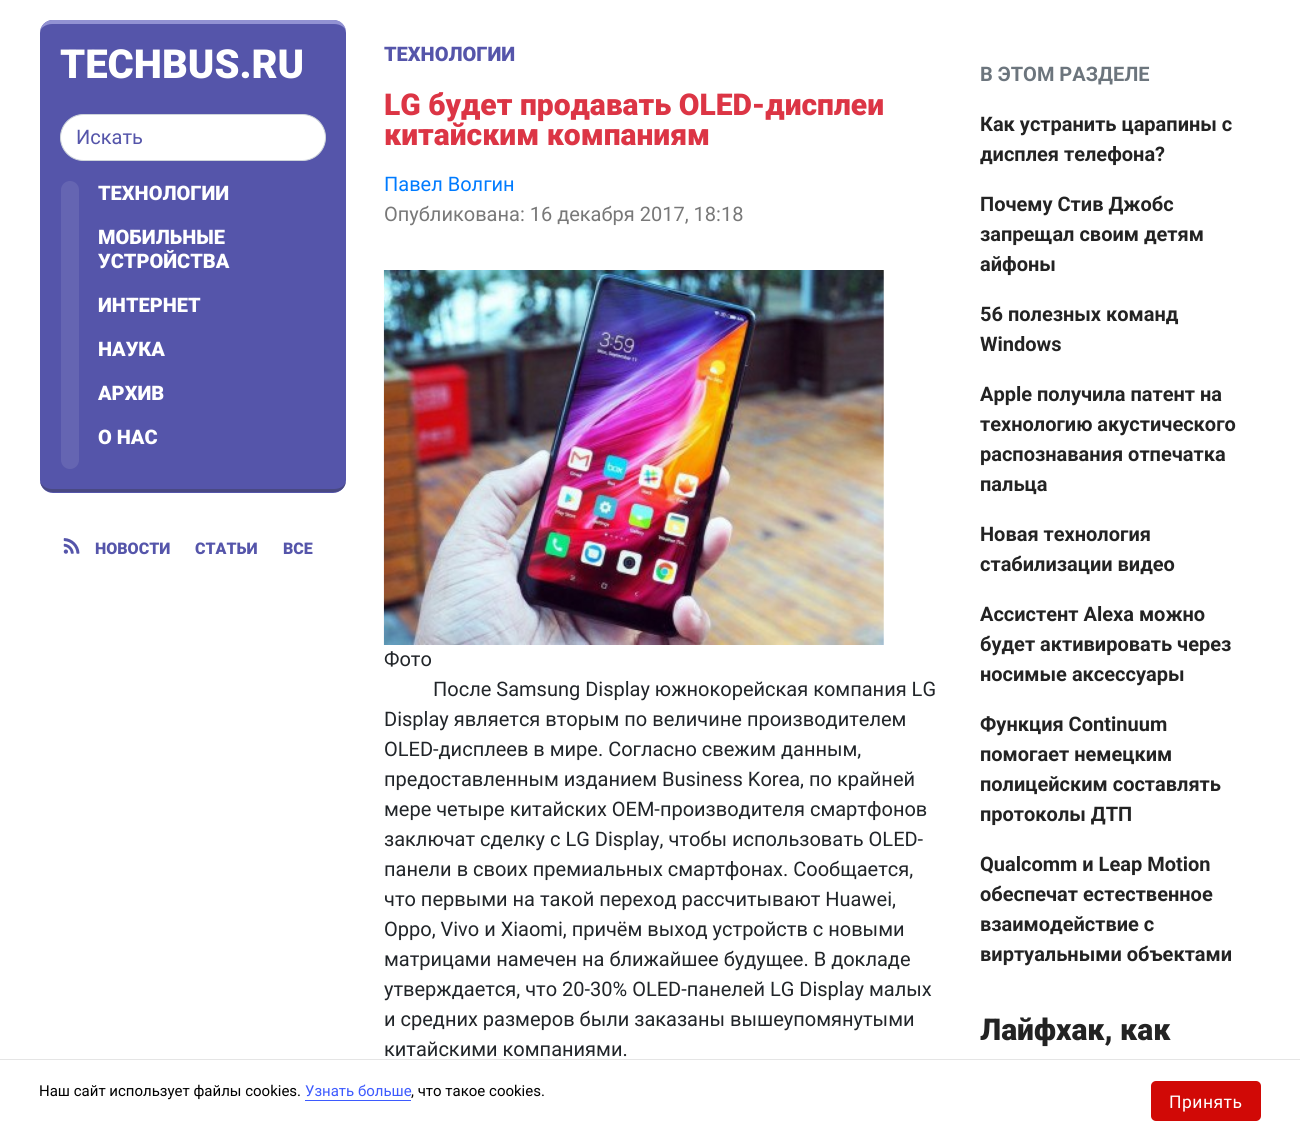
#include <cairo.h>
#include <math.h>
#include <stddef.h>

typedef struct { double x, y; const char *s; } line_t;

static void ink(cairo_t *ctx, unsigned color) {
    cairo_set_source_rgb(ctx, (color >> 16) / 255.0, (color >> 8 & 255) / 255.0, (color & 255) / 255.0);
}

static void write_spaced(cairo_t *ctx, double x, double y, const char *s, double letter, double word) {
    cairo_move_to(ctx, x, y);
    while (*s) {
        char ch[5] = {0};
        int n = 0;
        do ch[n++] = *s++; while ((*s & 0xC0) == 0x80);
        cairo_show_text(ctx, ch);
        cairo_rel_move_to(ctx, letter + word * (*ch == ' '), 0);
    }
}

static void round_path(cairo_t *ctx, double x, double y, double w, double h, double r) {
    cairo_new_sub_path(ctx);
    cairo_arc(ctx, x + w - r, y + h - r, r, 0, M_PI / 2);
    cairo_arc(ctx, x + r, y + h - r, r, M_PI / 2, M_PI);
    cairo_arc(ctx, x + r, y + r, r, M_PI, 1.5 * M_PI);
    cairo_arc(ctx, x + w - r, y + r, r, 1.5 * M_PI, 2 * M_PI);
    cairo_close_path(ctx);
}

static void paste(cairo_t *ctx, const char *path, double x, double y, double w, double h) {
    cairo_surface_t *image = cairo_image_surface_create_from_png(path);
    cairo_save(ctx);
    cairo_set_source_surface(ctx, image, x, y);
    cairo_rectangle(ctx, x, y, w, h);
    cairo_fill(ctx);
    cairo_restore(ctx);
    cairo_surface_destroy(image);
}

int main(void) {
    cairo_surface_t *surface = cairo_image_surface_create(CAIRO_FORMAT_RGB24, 1300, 1142);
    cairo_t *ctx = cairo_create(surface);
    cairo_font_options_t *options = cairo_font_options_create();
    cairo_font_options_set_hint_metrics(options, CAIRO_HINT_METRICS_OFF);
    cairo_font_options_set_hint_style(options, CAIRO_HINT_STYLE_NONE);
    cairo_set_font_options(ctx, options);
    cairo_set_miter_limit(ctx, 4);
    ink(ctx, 0xFFFFFF);
    cairo_paint(ctx);
    ink(ctx, 0x5555AA);
    round_path(ctx, 40, 20, 306, 473, 13);
    cairo_fill(ctx);
    ink(ctx, 0x9292D3);
    cairo_new_path(ctx);
    cairo_move_to(ctx, 52, 20);
    cairo_curve_to(ctx, 46, 20, 40, 26, 40, 32);
    cairo_curve_to(ctx, 40, 28, 46, 24, 52, 24);
    cairo_line_to(ctx, 334, 24);
    cairo_curve_to(ctx, 341, 24, 346, 28, 346, 32);
    cairo_curve_to(ctx, 346, 26, 341, 20, 334, 20);
    cairo_close_path(ctx);
    cairo_fill(ctx);
    ink(ctx, 0x494983);
    cairo_new_path(ctx);
    cairo_move_to(ctx, 334, 492);
    cairo_curve_to(ctx, 341, 492, 346, 487, 346, 480);
    cairo_curve_to(ctx, 346, 485, 341, 489, 334, 489);
    cairo_line_to(ctx, 52, 489);
    cairo_curve_to(ctx, 46, 489, 40, 485, 40, 480);
    cairo_curve_to(ctx, 40, 487, 46, 492, 52, 492);
    cairo_close_path(ctx);
    cairo_fill(ctx);
    cairo_select_font_face(ctx, "Roboto Black", CAIRO_FONT_SLANT_NORMAL, CAIRO_FONT_WEIGHT_NORMAL);
    cairo_set_font_size(ctx, 40);
    ink(ctx, 0xFFFFFF);
    cairo_move_to(ctx, 60, 78);
    cairo_show_text(ctx, "TECHBUS.RU");
    round_path(ctx, 60.5, 114.5, 265, 46, 23);
    cairo_fill_preserve(ctx);
    ink(ctx, 0xCED4DA);
    cairo_set_line_width(ctx, 1);
    cairo_stroke(ctx);
    cairo_select_font_face(ctx, "Roboto", CAIRO_FONT_SLANT_NORMAL, CAIRO_FONT_WEIGHT_NORMAL);
    cairo_set_font_size(ctx, 20);
    ink(ctx, 0x5555AA);
    cairo_move_to(ctx, 76, 144);
    cairo_show_text(ctx, "Искать");
    ink(ctx, 0x6565B2);
    round_path(ctx, 61, 181, 18, 288, 9);
    cairo_fill(ctx);
    cairo_select_font_face(ctx, "Roboto Black", CAIRO_FONT_SLANT_NORMAL, CAIRO_FONT_WEIGHT_NORMAL);
    ink(ctx, 0xFFFFFF);
    {
        static const line_t items[] = {
            {98, 200, "ТЕХНОЛОГИИ"},
            {98, 244, "МОБИЛЬНЫЕ"},
            {98, 268, "УСТРОЙСТВА"},
            {98, 312, "ИНТЕРНЕТ"},
            {98, 356, "НАУКА"},
            {98, 400, "АРХИВ"},
            {98, 444, "О НАС"},
        };
        for (size_t i = 0; i < sizeof items / sizeof *items; i++) {
            cairo_move_to(ctx, items[i].x, items[i].y);
            cairo_show_text(ctx, items[i].s);
        }
    }
    paste(ctx, "media/1.png", 63, 538, 17, 16);
    cairo_set_font_size(ctx, 16);
    ink(ctx, 0x5555AA);
    {
        static const line_t items[] = {
            {95, 554, "НОВОСТИ"},
            {195, 554, "СТАТЬИ"},
            {283, 554, "ВСЕ"},
        };
        for (size_t i = 0; i < sizeof items / sizeof *items; i++) {
            cairo_move_to(ctx, items[i].x, items[i].y);
            cairo_show_text(ctx, items[i].s);
        }
    }
    cairo_set_font_size(ctx, 20);
    cairo_move_to(ctx, 384, 61);
    cairo_show_text(ctx, "ТЕХНОЛОГИИ");
    cairo_set_font_size(ctx, 30);
    ink(ctx, 0xDC3545);
    cairo_move_to(ctx, 384, 115);
    cairo_show_text(ctx, "LG будет продавать OLED-дисплеи");
    cairo_move_to(ctx, 384, 145);
    cairo_show_text(ctx, "китайским компаниям");
    cairo_select_font_face(ctx, "Roboto", CAIRO_FONT_SLANT_NORMAL, CAIRO_FONT_WEIGHT_NORMAL);
    cairo_set_font_size(ctx, 20);
    ink(ctx, 0x007BFF);
    cairo_move_to(ctx, 384, 191);
    cairo_show_text(ctx, "Павел Волгин");
    ink(ctx, 0x787878);
    cairo_move_to(ctx, 384, 221);
    cairo_show_text(ctx, "Опубликована: 16 декабря 2017, 18:18");
    paste(ctx, "media/2.png", 383, 270, 501, 375);
    ink(ctx, 0x212529);
    {
        static const line_t items[] = {
            {384, 666, "Фото"},
            {433, 696, "После Samsung Display южнокорейская компания LG"},
            {384, 726, "Display является вторым по величине производителем"},
            {384, 756, "OLED-дисплеев в мире. Согласно свежим данным,"},
            {384, 786, "предоставленным изданием Business Korea, по крайней"},
            {384, 816, "мере четыре китайских OEM-производителя смартфонов"},
            {384, 846, "заключат сделку с LG Display, чтобы использовать OLED-"},
            {384, 876, "панели в своих премиальных смартфонах. Сообщается,"},
            {384, 906, "что первыми на такой переход рассчитывают Huawei,"},
            {384, 936, "Oppo, Vivo и Xiaomi, причём выход устройств с новыми"},
            {384, 966, "матрицами намечен на ближайшее будущее. В докладе"},
            {384, 996, "утверждается, что 20-30% OLED-панелей LG Display малых"},
            {384, 1026, "и средних размеров были заказаны вышеупомянутыми"},
            {384, 1056, "китайскими компаниями."},
        };
        for (size_t i = 0; i < sizeof items / sizeof *items; i++) {
            cairo_move_to(ctx, items[i].x, items[i].y);
            cairo_show_text(ctx, items[i].s);
        }
    }
    cairo_select_font_face(ctx, "Roboto", CAIRO_FONT_SLANT_NORMAL, CAIRO_FONT_WEIGHT_BOLD);
    ink(ctx, 0x6C757D);
    cairo_move_to(ctx, 980, 81);
    cairo_show_text(ctx, "В ЭТОМ РАЗДЕЛЕ");
    ink(ctx, 0x232323);
    {
        static const line_t items[] = {
            {980, 131, "Как устранить царапины с"},
            {980, 161, "дисплея телефона?"},
            {980, 211, "Почему Стив Джобс"},
            {980, 241, "запрещал своим детям"},
            {980, 271, "айфоны"},
            {980, 321, "56 полезных команд"},
            {980, 351, "Windows"},
            {980, 401, "Apple получила патент на"},
            {980, 431, "технологию акустического"},
            {980, 461, "распознавания отпечатка"},
            {980, 491, "пальца"},
            {980, 541, "Новая технология"},
            {980, 571, "стабилизации видео"},
            {980, 621, "Ассистент Alexa можно"},
            {980, 651, "будет активировать через"},
            {980, 681, "носимые аксессуары"},
            {980, 731, "Функция Continuum"},
            {980, 761, "помогает немецким"},
            {980, 791, "полицейским составлять"},
            {980, 821, "протоколы ДТП"},
            {980, 871, "Qualcomm и Leap Motion"},
            {980, 901, "обеспечат естественное"},
            {980, 931, "взаимодействие с"},
            {980, 961, "виртуальными объектами"},
        };
        for (size_t i = 0; i < sizeof items / sizeof *items; i++) {
            cairo_move_to(ctx, items[i].x, items[i].y);
            cairo_show_text(ctx, items[i].s);
        }
    }
    cairo_select_font_face(ctx, "Roboto Black", CAIRO_FONT_SLANT_NORMAL, CAIRO_FONT_WEIGHT_NORMAL);
    cairo_set_font_size(ctx, 30);
    cairo_move_to(ctx, 980, 1040);
    cairo_show_text(ctx, "Лайфхак, как");
    ink(ctx, 0xE5E5E5);
    cairo_rectangle(ctx, 0, 1059, 1300, 1);
    cairo_fill(ctx);
    cairo_select_font_face(ctx, "Roboto", CAIRO_FONT_SLANT_NORMAL, CAIRO_FONT_WEIGHT_NORMAL);
    cairo_set_font_size(ctx, 15);
    ink(ctx, 0x000000);
    cairo_move_to(ctx, 39, 1096);
    cairo_show_text(ctx, "Наш сайт использует файлы cookies.");
    ink(ctx, 0x3D5AFE);
    cairo_move_to(ctx, 305, 1096);
    cairo_show_text(ctx, "Узнать больше");
    cairo_rectangle(ctx, 305, 1100, 106, 1);
    cairo_fill(ctx);
    ink(ctx, 0x000000);
    cairo_move_to(ctx, 411, 1096);
    cairo_show_text(ctx, ", что такое cookies.");
    ink(ctx, 0xD10906);
    round_path(ctx, 1151, 1081, 110, 40, 5);
    cairo_fill(ctx);
    cairo_set_font_size(ctx, 17.5);
    ink(ctx, 0xFFFFFF);
    write_spaced(ctx, 1169, 1108, "Принять", 0.5, 0);
    cairo_surface_write_to_png(surface, "image.png");
    cairo_font_options_destroy(options);
    cairo_destroy(ctx);
    cairo_surface_destroy(surface);
    return 0;
}
